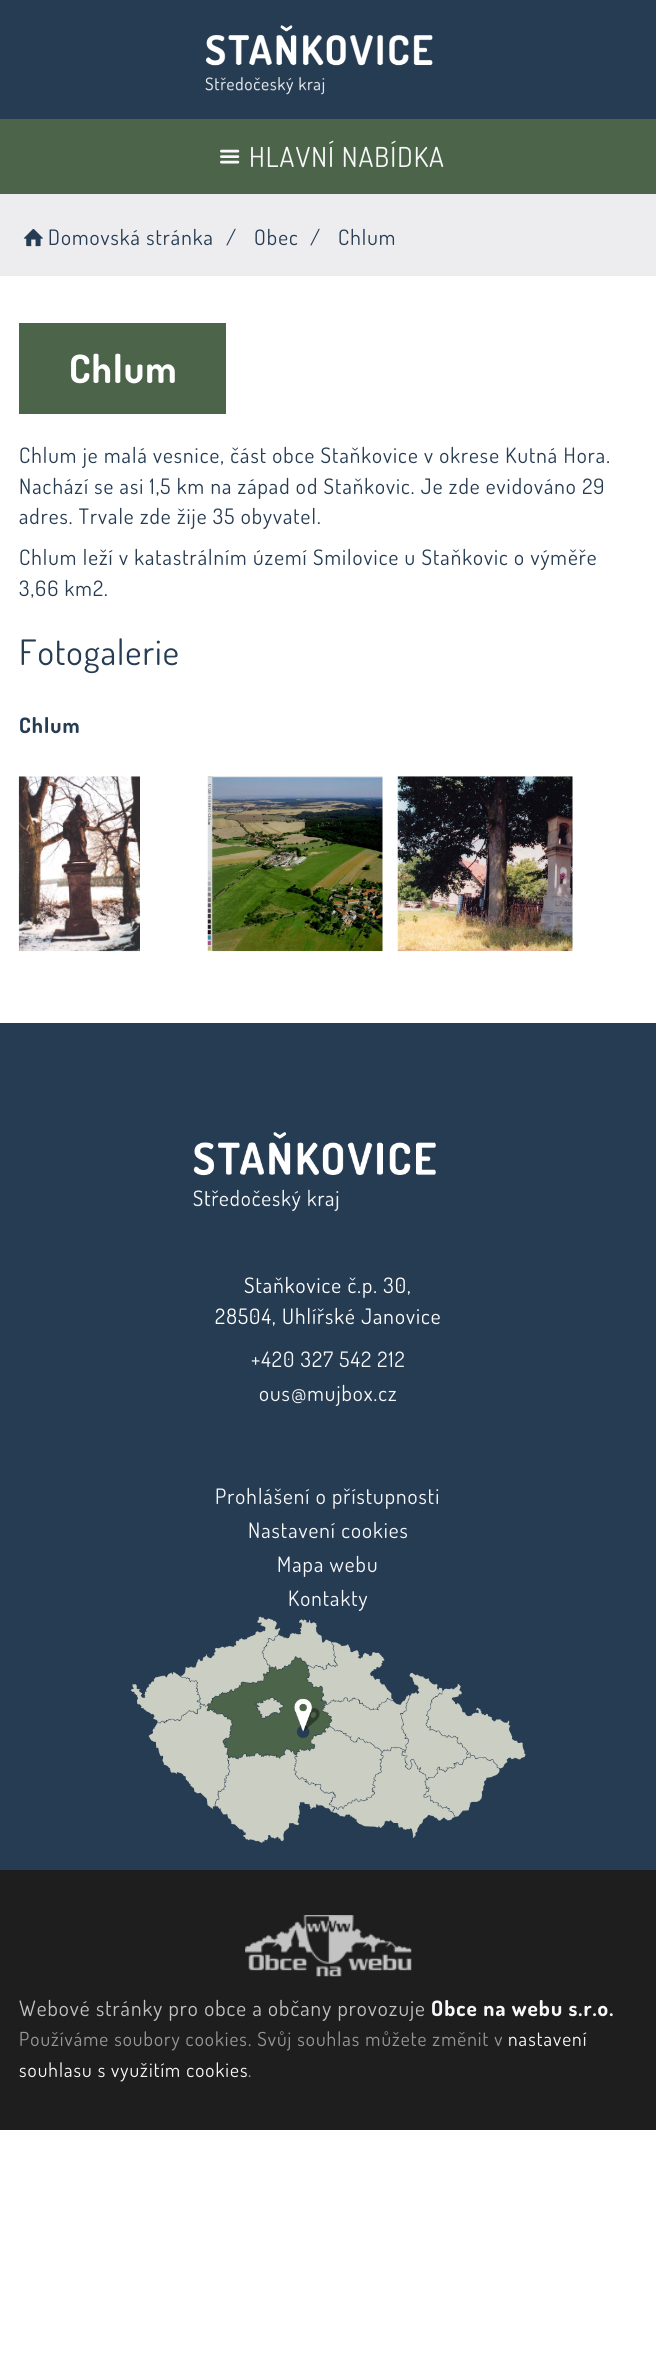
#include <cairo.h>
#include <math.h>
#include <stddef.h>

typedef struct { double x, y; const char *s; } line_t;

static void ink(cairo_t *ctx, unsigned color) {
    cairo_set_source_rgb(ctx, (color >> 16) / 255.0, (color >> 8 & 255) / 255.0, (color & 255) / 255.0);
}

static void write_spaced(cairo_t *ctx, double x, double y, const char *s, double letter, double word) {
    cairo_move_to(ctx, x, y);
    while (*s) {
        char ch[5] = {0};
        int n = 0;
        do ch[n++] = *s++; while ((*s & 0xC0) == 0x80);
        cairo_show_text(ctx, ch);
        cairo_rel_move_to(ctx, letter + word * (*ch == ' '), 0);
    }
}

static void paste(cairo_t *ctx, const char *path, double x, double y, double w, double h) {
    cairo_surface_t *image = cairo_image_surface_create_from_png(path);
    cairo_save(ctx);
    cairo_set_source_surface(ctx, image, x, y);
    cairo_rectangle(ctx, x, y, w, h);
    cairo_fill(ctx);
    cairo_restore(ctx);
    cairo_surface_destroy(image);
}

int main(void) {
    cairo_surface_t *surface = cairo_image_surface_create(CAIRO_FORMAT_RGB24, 656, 2379);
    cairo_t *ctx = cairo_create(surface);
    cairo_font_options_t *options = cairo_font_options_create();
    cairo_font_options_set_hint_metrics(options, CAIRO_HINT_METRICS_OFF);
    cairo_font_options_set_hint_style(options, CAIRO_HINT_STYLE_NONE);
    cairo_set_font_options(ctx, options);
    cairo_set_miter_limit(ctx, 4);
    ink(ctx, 0xFFFFFF);
    cairo_paint(ctx);
    ink(ctx, 0x263C53);
    cairo_rectangle(ctx, 0, 0, 656, 119);
    cairo_fill(ctx);
    paste(ctx, "media/1.png", 205, 25, 228, 70);
    ink(ctx, 0x4C644A);
    cairo_rectangle(ctx, 0, 119, 656, 75);
    cairo_fill(ctx);
    paste(ctx, "media/2.png", 220, 149, 20, 15);
    cairo_select_font_face(ctx, "Dosis", CAIRO_FONT_SLANT_NORMAL, CAIRO_FONT_WEIGHT_NORMAL);
    cairo_set_font_size(ctx, 27.5);
    ink(ctx, 0xF8F8FA);
    write_spaced(ctx, 249, 167, "HLAVNÍ NABÍDKA", 1.05, 0);
    ink(ctx, 0xEDEDEF);
    cairo_rectangle(ctx, 0, 194, 656, 82);
    cairo_fill(ctx);
    paste(ctx, "media/3.png", 23, 229, 20, 18);
    cairo_set_font_size(ctx, 21.25);
    ink(ctx, 0x263C53);
    {
        static const line_t items[] = {
            {48, 245, "Domovská stránka"},
            {226, 245, "/"},
            {254, 245, "Obec"},
            {310, 245, "/"},
            {338, 245, "Chlum"},
        };
        for (size_t i = 0; i < sizeof items / sizeof *items; i++) {
            write_spaced(ctx, items[i].x, items[i].y, items[i].s, 1.05, 0);
        }
    }
    ink(ctx, 0x4C644A);
    cairo_rectangle(ctx, 19, 323, 207, 91);
    cairo_fill(ctx);
    cairo_select_font_face(ctx, "Dosis", CAIRO_FONT_SLANT_NORMAL, CAIRO_FONT_WEIGHT_BOLD);
    cairo_set_font_size(ctx, 39);
    ink(ctx, 0xFFFFFF);
    write_spaced(ctx, 69, 383, "Chlum", 1.05, 0);
    cairo_select_font_face(ctx, "Dosis", CAIRO_FONT_SLANT_NORMAL, CAIRO_FONT_WEIGHT_NORMAL);
    cairo_set_font_size(ctx, 21.25);
    ink(ctx, 0x263C53);
    {
        static const line_t items[] = {
            {19, 463, "Chlum je malá vesnice, část obce Staňkovice v okrese Kutná Hora."},
            {19, 494, "Nachází se asi 1,5 km na západ od Staňkovic. Je zde evidováno 29"},
            {19, 524, "adres. Trvale zde žije 35 obyvatel."},
            {19, 565, "Chlum leží v katastrálním území Smilovice u Staňkovic o výměře"},
            {19, 596, "3,66 km2."},
        };
        for (size_t i = 0; i < sizeof items / sizeof *items; i++) {
            write_spaced(ctx, items[i].x, items[i].y, items[i].s, 1.05, 0);
        }
    }
    cairo_set_font_size(ctx, 35);
    write_spaced(ctx, 19, 665, "Fotogalerie", 1.05, 0);
    cairo_select_font_face(ctx, "Dosis", CAIRO_FONT_SLANT_NORMAL, CAIRO_FONT_WEIGHT_BOLD);
    cairo_set_font_size(ctx, 21.25);
    write_spaced(ctx, 19, 733, "Chlum", 1.05, 0);
    paste(ctx, "media/4.png", 18, 776, 122, 176);
    paste(ctx, "media/5.png", 207, 776, 176, 176);
    paste(ctx, "media/6.png", 397, 776, 176, 176);
    cairo_rectangle(ctx, 0, 1023, 656, 847);
    cairo_fill(ctx);
    paste(ctx, "media/7.png", 193, 1132, 243, 80);
    cairo_select_font_face(ctx, "Dosis", CAIRO_FONT_SLANT_NORMAL, CAIRO_FONT_WEIGHT_NORMAL);
    ink(ctx, 0xFFFFFF);
    write_spaced(ctx, 244, 1293, "Staňkovice č.p. 30,", 1.05, 0);
    write_spaced(ctx, 215, 1324, "28504, Uhlířské Janovice", 1.05, 0);
    ink(ctx, 0xF8F8FA);
    {
        static const line_t items[] = {
            {251, 1367, "+420 327 542 212"},
            {259, 1401, "ous@mujbox.cz"},
            {215, 1504, "Prohlášení o přístupnosti"},
            {248, 1538, "Nastavení cookies"},
            {277, 1572, "Mapa webu"},
            {288, 1606, "Kontakty"},
        };
        for (size_t i = 0; i < sizeof items / sizeof *items; i++) {
            write_spaced(ctx, items[i].x, items[i].y, items[i].s, 1.05, 0);
        }
    }
    paste(ctx, "media/8.png", 130, 1616, 396, 227);
    ink(ctx, 0x1E1E1E);
    cairo_rectangle(ctx, 0, 1870, 656, 260);
    cairo_fill(ctx);
    paste(ctx, "media/9.png", 245, 1915, 167, 62);
    ink(ctx, 0xC2C2C2);
    write_spaced(ctx, 19, 2016, "Webové stránky pro obce a občany provozuje", 1.05, 0);
    cairo_select_font_face(ctx, "Dosis", CAIRO_FONT_SLANT_NORMAL, CAIRO_FONT_WEIGHT_BOLD);
    ink(ctx, 0xF8F8FA);
    write_spaced(ctx, 431, 2016, "Obce na webu s.r.o.", 1.05, 0);
    cairo_select_font_face(ctx, "Dosis", CAIRO_FONT_SLANT_NORMAL, CAIRO_FONT_WEIGHT_NORMAL);
    cairo_set_font_size(ctx, 19.35);
    ink(ctx, 0x979797);
    write_spaced(ctx, 19, 2046, "Používáme soubory cookies. Svůj souhlas můžete změnit v", 1.05, 0);
    ink(ctx, 0xF8F8FA);
    write_spaced(ctx, 508, 2046, "nastavení", 1.05, 0);
    write_spaced(ctx, 19, 2077, "souhlasu s využitím cookies", 1.05, 0);
    ink(ctx, 0x979797);
    write_spaced(ctx, 248, 2077, ".", 1.05, 0);
    cairo_surface_write_to_png(surface, "image.png");
    cairo_font_options_destroy(options);
    cairo_destroy(ctx);
    cairo_surface_destroy(surface);
    return 0;
}
